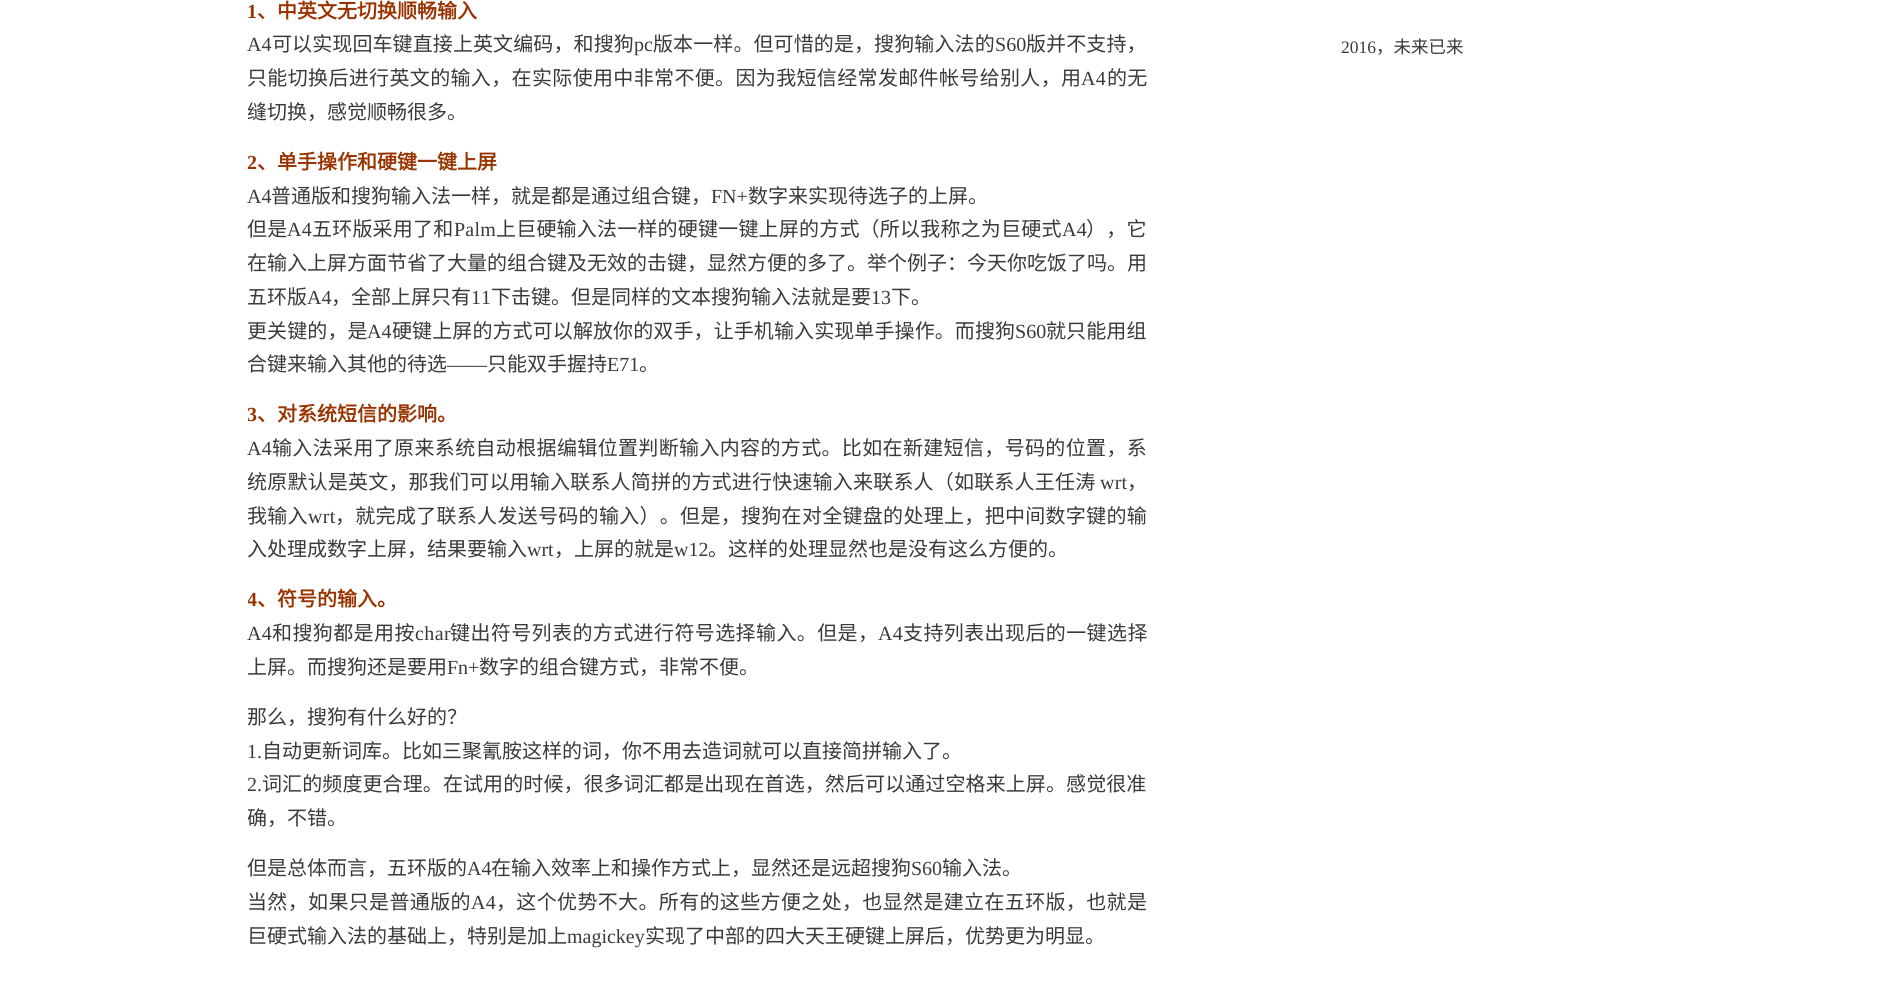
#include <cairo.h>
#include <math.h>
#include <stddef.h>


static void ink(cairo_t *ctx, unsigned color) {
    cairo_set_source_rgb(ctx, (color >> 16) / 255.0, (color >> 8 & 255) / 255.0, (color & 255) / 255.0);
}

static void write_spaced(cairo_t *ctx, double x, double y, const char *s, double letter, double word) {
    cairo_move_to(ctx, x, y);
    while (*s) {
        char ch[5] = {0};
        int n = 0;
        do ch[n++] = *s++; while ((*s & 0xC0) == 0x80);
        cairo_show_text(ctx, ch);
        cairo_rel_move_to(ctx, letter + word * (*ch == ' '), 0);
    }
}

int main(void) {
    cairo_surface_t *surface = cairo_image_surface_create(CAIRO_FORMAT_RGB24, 1893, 986);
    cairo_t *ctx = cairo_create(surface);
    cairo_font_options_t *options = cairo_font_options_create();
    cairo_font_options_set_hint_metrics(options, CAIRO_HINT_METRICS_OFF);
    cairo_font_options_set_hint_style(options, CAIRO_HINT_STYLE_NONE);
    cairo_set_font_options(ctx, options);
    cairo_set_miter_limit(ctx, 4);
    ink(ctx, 0xFFFFFF);
    cairo_paint(ctx);
    cairo_select_font_face(ctx, "Liberation Serif", CAIRO_FONT_SLANT_NORMAL, CAIRO_FONT_WEIGHT_BOLD);
    cairo_set_font_size(ctx, 20);
    ink(ctx, 0x993300);
    cairo_move_to(ctx, 247, 18);
    cairo_show_text(ctx, "1");
    cairo_select_font_face(ctx, "Noto Sans CJK SC", CAIRO_FONT_SLANT_NORMAL, CAIRO_FONT_WEIGHT_BOLD);
    cairo_move_to(ctx, 257, 18);
    cairo_show_text(ctx, "、中英文无切换顺畅输入");
    cairo_select_font_face(ctx, "Liberation Serif", CAIRO_FONT_SLANT_NORMAL, CAIRO_FONT_WEIGHT_NORMAL);
    ink(ctx, 0x3A3A3A);
    write_spaced(ctx, 247, 51, "A4", 0.1, 0);
    cairo_select_font_face(ctx, "Noto Sans CJK SC", CAIRO_FONT_SLANT_NORMAL, CAIRO_FONT_WEIGHT_NORMAL);
    write_spaced(ctx, 272, 51, "可以实现回车键直接上英文编码，和搜狗", 0.1, 0);
    cairo_select_font_face(ctx, "Liberation Serif", CAIRO_FONT_SLANT_NORMAL, CAIRO_FONT_WEIGHT_NORMAL);
    write_spaced(ctx, 634, 51, "pc", 0.1, 0);
    cairo_select_font_face(ctx, "Noto Sans CJK SC", CAIRO_FONT_SLANT_NORMAL, CAIRO_FONT_WEIGHT_NORMAL);
    write_spaced(ctx, 653, 51, "版本一样。但可惜的是，搜狗输入法的", 0.1, 0);
    cairo_select_font_face(ctx, "Liberation Serif", CAIRO_FONT_SLANT_NORMAL, CAIRO_FONT_WEIGHT_NORMAL);
    write_spaced(ctx, 995, 51, "S60", 0.1, 0);
    cairo_select_font_face(ctx, "Noto Sans CJK SC", CAIRO_FONT_SLANT_NORMAL, CAIRO_FONT_WEIGHT_NORMAL);
    write_spaced(ctx, 1026, 51, "版并不支持，", 0.1, 0);
    write_spaced(ctx, 247, 85, "只能切换后进行英文的输入，在实际使用中非常不便。因为我短信经常发邮件帐号给别人，用", 0.35, 0);
    cairo_select_font_face(ctx, "Liberation Serif", CAIRO_FONT_SLANT_NORMAL, CAIRO_FONT_WEIGHT_NORMAL);
    write_spaced(ctx, 1081, 85, "A4", 0.35, 0);
    cairo_select_font_face(ctx, "Noto Sans CJK SC", CAIRO_FONT_SLANT_NORMAL, CAIRO_FONT_WEIGHT_NORMAL);
    write_spaced(ctx, 1107, 85, "的无", 0.35, 0);
    cairo_save(ctx);
    cairo_rectangle(ctx, 248, 0, 987, 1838);
    cairo_clip(ctx);
    cairo_move_to(ctx, 247, 119);
    cairo_show_text(ctx, "缝切换，感觉顺畅很多。");
    cairo_restore(ctx);
    cairo_select_font_face(ctx, "Liberation Serif", CAIRO_FONT_SLANT_NORMAL, CAIRO_FONT_WEIGHT_BOLD);
    ink(ctx, 0x993300);
    cairo_move_to(ctx, 247, 169);
    cairo_show_text(ctx, "2");
    cairo_select_font_face(ctx, "Noto Sans CJK SC", CAIRO_FONT_SLANT_NORMAL, CAIRO_FONT_WEIGHT_BOLD);
    cairo_move_to(ctx, 257, 169);
    cairo_show_text(ctx, "、单手操作和硬键一键上屏");
    cairo_select_font_face(ctx, "Liberation Serif", CAIRO_FONT_SLANT_NORMAL, CAIRO_FONT_WEIGHT_NORMAL);
    ink(ctx, 0x3A3A3A);
    cairo_move_to(ctx, 247, 203);
    cairo_show_text(ctx, "A4");
    cairo_select_font_face(ctx, "Noto Sans CJK SC", CAIRO_FONT_SLANT_NORMAL, CAIRO_FONT_WEIGHT_NORMAL);
    cairo_move_to(ctx, 271, 203);
    cairo_show_text(ctx, "普通版和搜狗输入法一样，就是都是通过组合键，");
    cairo_select_font_face(ctx, "Liberation Serif", CAIRO_FONT_SLANT_NORMAL, CAIRO_FONT_WEIGHT_NORMAL);
    cairo_move_to(ctx, 711, 203);
    cairo_show_text(ctx, "FN+");
    cairo_select_font_face(ctx, "Noto Sans CJK SC", CAIRO_FONT_SLANT_NORMAL, CAIRO_FONT_WEIGHT_NORMAL);
    cairo_move_to(ctx, 748, 203);
    cairo_show_text(ctx, "数字来实现待选子的上屏。");
    write_spaced(ctx, 247, 236, "但是", 0.2, 0);
    cairo_select_font_face(ctx, "Liberation Serif", CAIRO_FONT_SLANT_NORMAL, CAIRO_FONT_WEIGHT_NORMAL);
    write_spaced(ctx, 287, 236, "A4", 0.2, 0);
    cairo_select_font_face(ctx, "Noto Sans CJK SC", CAIRO_FONT_SLANT_NORMAL, CAIRO_FONT_WEIGHT_NORMAL);
    write_spaced(ctx, 312, 236, "五环版采用了和", 0.2, 0);
    cairo_select_font_face(ctx, "Liberation Serif", CAIRO_FONT_SLANT_NORMAL, CAIRO_FONT_WEIGHT_NORMAL);
    write_spaced(ctx, 454, 236, "Palm", 0.2, 0);
    cairo_select_font_face(ctx, "Noto Sans CJK SC", CAIRO_FONT_SLANT_NORMAL, CAIRO_FONT_WEIGHT_NORMAL);
    write_spaced(ctx, 496, 236, "上巨硬输入法一样的硬键一键上屏的方式（所以我称之为巨硬式", 0.2, 0);
    cairo_select_font_face(ctx, "Liberation Serif", CAIRO_FONT_SLANT_NORMAL, CAIRO_FONT_WEIGHT_NORMAL);
    write_spaced(ctx, 1062, 236, "A4", 0.2, 0);
    cairo_select_font_face(ctx, "Noto Sans CJK SC", CAIRO_FONT_SLANT_NORMAL, CAIRO_FONT_WEIGHT_NORMAL);
    write_spaced(ctx, 1086, 236, "），它", 0.2, 0);
    cairo_move_to(ctx, 247, 270);
    cairo_show_text(ctx, "在输入上屏方面节省了大量的组合键及无效的击键，显然方便的多了。举个例子：今天你吃饭了吗。用");
    cairo_move_to(ctx, 247, 304);
    cairo_show_text(ctx, "五环版");
    cairo_select_font_face(ctx, "Liberation Serif", CAIRO_FONT_SLANT_NORMAL, CAIRO_FONT_WEIGHT_NORMAL);
    cairo_move_to(ctx, 307, 304);
    cairo_show_text(ctx, "A4");
    cairo_select_font_face(ctx, "Noto Sans CJK SC", CAIRO_FONT_SLANT_NORMAL, CAIRO_FONT_WEIGHT_NORMAL);
    cairo_move_to(ctx, 331, 304);
    cairo_show_text(ctx, "，全部上屏只有");
    cairo_select_font_face(ctx, "Liberation Serif", CAIRO_FONT_SLANT_NORMAL, CAIRO_FONT_WEIGHT_NORMAL);
    cairo_move_to(ctx, 471, 304);
    cairo_show_text(ctx, "11");
    cairo_select_font_face(ctx, "Noto Sans CJK SC", CAIRO_FONT_SLANT_NORMAL, CAIRO_FONT_WEIGHT_NORMAL);
    cairo_move_to(ctx, 491, 304);
    cairo_show_text(ctx, "下击键。但是同样的文本搜狗输入法就是要");
    cairo_select_font_face(ctx, "Liberation Serif", CAIRO_FONT_SLANT_NORMAL, CAIRO_FONT_WEIGHT_NORMAL);
    cairo_move_to(ctx, 871, 304);
    cairo_show_text(ctx, "13");
    cairo_select_font_face(ctx, "Noto Sans CJK SC", CAIRO_FONT_SLANT_NORMAL, CAIRO_FONT_WEIGHT_NORMAL);
    cairo_move_to(ctx, 891, 304);
    cairo_show_text(ctx, "下。");
    write_spaced(ctx, 247, 338, "更关键的，是", 0.1, 0);
    cairo_select_font_face(ctx, "Liberation Serif", CAIRO_FONT_SLANT_NORMAL, CAIRO_FONT_WEIGHT_NORMAL);
    write_spaced(ctx, 367, 338, "A4", 0.1, 0);
    cairo_select_font_face(ctx, "Noto Sans CJK SC", CAIRO_FONT_SLANT_NORMAL, CAIRO_FONT_WEIGHT_NORMAL);
    write_spaced(ctx, 392, 338, "硬键上屏的方式可以解放你的双手，让手机输入实现单手操作。而搜狗", 0.1, 0);
    cairo_select_font_face(ctx, "Liberation Serif", CAIRO_FONT_SLANT_NORMAL, CAIRO_FONT_WEIGHT_NORMAL);
    write_spaced(ctx, 1015, 338, "S60", 0.1, 0);
    cairo_select_font_face(ctx, "Noto Sans CJK SC", CAIRO_FONT_SLANT_NORMAL, CAIRO_FONT_WEIGHT_NORMAL);
    write_spaced(ctx, 1046, 338, "就只能用组", 0.1, 0);
    cairo_move_to(ctx, 247, 371);
    cairo_show_text(ctx, "合键来输入其他的待选");
    cairo_select_font_face(ctx, "Liberation Serif", CAIRO_FONT_SLANT_NORMAL, CAIRO_FONT_WEIGHT_NORMAL);
    cairo_move_to(ctx, 447, 371);
    cairo_show_text(ctx, "——");
    cairo_select_font_face(ctx, "Noto Sans CJK SC", CAIRO_FONT_SLANT_NORMAL, CAIRO_FONT_WEIGHT_NORMAL);
    cairo_move_to(ctx, 487, 371);
    cairo_show_text(ctx, "只能双手握持");
    cairo_select_font_face(ctx, "Liberation Serif", CAIRO_FONT_SLANT_NORMAL, CAIRO_FONT_WEIGHT_NORMAL);
    cairo_move_to(ctx, 607, 371);
    cairo_show_text(ctx, "E71");
    cairo_select_font_face(ctx, "Noto Sans CJK SC", CAIRO_FONT_SLANT_NORMAL, CAIRO_FONT_WEIGHT_NORMAL);
    cairo_move_to(ctx, 639, 371);
    cairo_show_text(ctx, "。");
    cairo_save(ctx);
    cairo_rectangle(ctx, 248, 0, 987, 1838);
    cairo_clip(ctx);
    cairo_select_font_face(ctx, "Liberation Serif", CAIRO_FONT_SLANT_NORMAL, CAIRO_FONT_WEIGHT_BOLD);
    ink(ctx, 0x993300);
    cairo_move_to(ctx, 247, 421);
    cairo_show_text(ctx, "3");
    cairo_restore(ctx);
    cairo_select_font_face(ctx, "Noto Sans CJK SC", CAIRO_FONT_SLANT_NORMAL, CAIRO_FONT_WEIGHT_BOLD);
    ink(ctx, 0x993300);
    cairo_move_to(ctx, 257, 421);
    cairo_show_text(ctx, "、对系统短信的影响。");
    cairo_select_font_face(ctx, "Liberation Serif", CAIRO_FONT_SLANT_NORMAL, CAIRO_FONT_WEIGHT_NORMAL);
    ink(ctx, 0x3A3A3A);
    write_spaced(ctx, 247, 455, "A4", 0.35, 0);
    cairo_select_font_face(ctx, "Noto Sans CJK SC", CAIRO_FONT_SLANT_NORMAL, CAIRO_FONT_WEIGHT_NORMAL);
    write_spaced(ctx, 272, 455, "输入法采用了原来系统自动根据编辑位置判断输入内容的方式。比如在新建短信，号码的位置，系", 0.35, 0);
    cairo_save(ctx);
    cairo_rectangle(ctx, 248, 0, 987, 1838);
    cairo_clip(ctx);
    write_spaced(ctx, 247, 489, "统原默认是英文，那我们可以用输入联系人简拼的方式进行快速输入来联系人（如联系人王任涛", 0.2, 0);
    cairo_restore(ctx);
    cairo_select_font_face(ctx, "Liberation Serif", CAIRO_FONT_SLANT_NORMAL, CAIRO_FONT_WEIGHT_NORMAL);
    write_spaced(ctx, 1100, 489, "wrt", 0.2, 0);
    cairo_select_font_face(ctx, "Noto Sans CJK SC", CAIRO_FONT_SLANT_NORMAL, CAIRO_FONT_WEIGHT_NORMAL);
    write_spaced(ctx, 1127, 489, "，", 0.2, 0);
    write_spaced(ctx, 247, 523, "我输入", 0.3, 0);
    cairo_select_font_face(ctx, "Liberation Serif", CAIRO_FONT_SLANT_NORMAL, CAIRO_FONT_WEIGHT_NORMAL);
    write_spaced(ctx, 308, 523, "wrt", 0.3, 0);
    cairo_select_font_face(ctx, "Noto Sans CJK SC", CAIRO_FONT_SLANT_NORMAL, CAIRO_FONT_WEIGHT_NORMAL);
    write_spaced(ctx, 335, 523, "，就完成了联系人发送号码的输入）。但是，搜狗在对全键盘的处理上，把中间数字键的输", 0.3, 0);
    cairo_move_to(ctx, 247, 556);
    cairo_show_text(ctx, "入处理成数字上屏，结果要输入");
    cairo_select_font_face(ctx, "Liberation Serif", CAIRO_FONT_SLANT_NORMAL, CAIRO_FONT_WEIGHT_NORMAL);
    cairo_move_to(ctx, 527, 556);
    cairo_show_text(ctx, "wrt");
    cairo_select_font_face(ctx, "Noto Sans CJK SC", CAIRO_FONT_SLANT_NORMAL, CAIRO_FONT_WEIGHT_NORMAL);
    cairo_move_to(ctx, 554, 556);
    cairo_show_text(ctx, "，上屏的就是");
    cairo_select_font_face(ctx, "Liberation Serif", CAIRO_FONT_SLANT_NORMAL, CAIRO_FONT_WEIGHT_NORMAL);
    cairo_move_to(ctx, 674, 556);
    cairo_show_text(ctx, "w12");
    cairo_select_font_face(ctx, "Noto Sans CJK SC", CAIRO_FONT_SLANT_NORMAL, CAIRO_FONT_WEIGHT_NORMAL);
    cairo_move_to(ctx, 708, 556);
    cairo_show_text(ctx, "。这样的处理显然也是没有这么方便的。");
    cairo_save(ctx);
    cairo_rectangle(ctx, 248, 0, 987, 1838);
    cairo_clip(ctx);
    cairo_select_font_face(ctx, "Liberation Serif", CAIRO_FONT_SLANT_NORMAL, CAIRO_FONT_WEIGHT_BOLD);
    ink(ctx, 0x993300);
    cairo_move_to(ctx, 247, 606);
    cairo_show_text(ctx, "4");
    cairo_restore(ctx);
    cairo_select_font_face(ctx, "Noto Sans CJK SC", CAIRO_FONT_SLANT_NORMAL, CAIRO_FONT_WEIGHT_BOLD);
    ink(ctx, 0x993300);
    cairo_move_to(ctx, 257, 606);
    cairo_show_text(ctx, "、符号的输入。");
    cairo_select_font_face(ctx, "Liberation Serif", CAIRO_FONT_SLANT_NORMAL, CAIRO_FONT_WEIGHT_NORMAL);
    ink(ctx, 0x3A3A3A);
    write_spaced(ctx, 247, 640, "A4", 0.4, 0);
    cairo_select_font_face(ctx, "Noto Sans CJK SC", CAIRO_FONT_SLANT_NORMAL, CAIRO_FONT_WEIGHT_NORMAL);
    write_spaced(ctx, 272, 640, "和搜狗都是用按", 0.4, 0);
    cairo_select_font_face(ctx, "Liberation Serif", CAIRO_FONT_SLANT_NORMAL, CAIRO_FONT_WEIGHT_NORMAL);
    write_spaced(ctx, 415, 640, "char", 0.4, 0);
    cairo_select_font_face(ctx, "Noto Sans CJK SC", CAIRO_FONT_SLANT_NORMAL, CAIRO_FONT_WEIGHT_NORMAL);
    write_spaced(ctx, 450, 640, "键出符号列表的方式进行符号选择输入。但是，", 0.4, 0);
    cairo_select_font_face(ctx, "Liberation Serif", CAIRO_FONT_SLANT_NORMAL, CAIRO_FONT_WEIGHT_NORMAL);
    write_spaced(ctx, 878, 640, "A4", 0.4, 0);
    cairo_select_font_face(ctx, "Noto Sans CJK SC", CAIRO_FONT_SLANT_NORMAL, CAIRO_FONT_WEIGHT_NORMAL);
    write_spaced(ctx, 903, 640, "支持列表出现后的一键选择", 0.4, 0);
    cairo_move_to(ctx, 247, 674);
    cairo_show_text(ctx, "上屏。而搜狗还是要用");
    cairo_select_font_face(ctx, "Liberation Serif", CAIRO_FONT_SLANT_NORMAL, CAIRO_FONT_WEIGHT_NORMAL);
    cairo_move_to(ctx, 447, 674);
    cairo_show_text(ctx, "Fn+");
    cairo_select_font_face(ctx, "Noto Sans CJK SC", CAIRO_FONT_SLANT_NORMAL, CAIRO_FONT_WEIGHT_NORMAL);
    cairo_move_to(ctx, 479, 674);
    cairo_show_text(ctx, "数字的组合键方式，非常不便。");
    cairo_move_to(ctx, 247, 724);
    cairo_show_text(ctx, "那么，搜狗有什么好的？");
    cairo_select_font_face(ctx, "Liberation Serif", CAIRO_FONT_SLANT_NORMAL, CAIRO_FONT_WEIGHT_NORMAL);
    cairo_move_to(ctx, 247, 758);
    cairo_show_text(ctx, "1.");
    cairo_select_font_face(ctx, "Noto Sans CJK SC", CAIRO_FONT_SLANT_NORMAL, CAIRO_FONT_WEIGHT_NORMAL);
    cairo_move_to(ctx, 262, 758);
    cairo_show_text(ctx, "自动更新词库。比如三聚氰胺这样的词，你不用去造词就可以直接简拼输入了。");
    cairo_select_font_face(ctx, "Liberation Serif", CAIRO_FONT_SLANT_NORMAL, CAIRO_FONT_WEIGHT_NORMAL);
    write_spaced(ctx, 247, 791, "2.", 0.1, 0);
    cairo_select_font_face(ctx, "Noto Sans CJK SC", CAIRO_FONT_SLANT_NORMAL, CAIRO_FONT_WEIGHT_NORMAL);
    write_spaced(ctx, 262, 791, "词汇的频度更合理。在试用的时候，很多词汇都是出现在首选，然后可以通过空格来上屏。感觉很准", 0.1, 0);
    cairo_move_to(ctx, 247, 825);
    cairo_show_text(ctx, "确，不错。");
    cairo_move_to(ctx, 247, 875);
    cairo_show_text(ctx, "但是总体而言，五环版的");
    cairo_select_font_face(ctx, "Liberation Serif", CAIRO_FONT_SLANT_NORMAL, CAIRO_FONT_WEIGHT_NORMAL);
    cairo_move_to(ctx, 467, 875);
    cairo_show_text(ctx, "A4");
    cairo_select_font_face(ctx, "Noto Sans CJK SC", CAIRO_FONT_SLANT_NORMAL, CAIRO_FONT_WEIGHT_NORMAL);
    cairo_move_to(ctx, 491, 875);
    cairo_show_text(ctx, "在输入效率上和操作方式上，显然还是远超搜狗");
    cairo_select_font_face(ctx, "Liberation Serif", CAIRO_FONT_SLANT_NORMAL, CAIRO_FONT_WEIGHT_NORMAL);
    cairo_move_to(ctx, 911, 875);
    cairo_show_text(ctx, "S60");
    cairo_select_font_face(ctx, "Noto Sans CJK SC", CAIRO_FONT_SLANT_NORMAL, CAIRO_FONT_WEIGHT_NORMAL);
    cairo_move_to(ctx, 942, 875);
    cairo_show_text(ctx, "输入法。");
    write_spaced(ctx, 247, 909, "当然，如果只是普通版的", 0.35, 0);
    cairo_select_font_face(ctx, "Liberation Serif", CAIRO_FONT_SLANT_NORMAL, CAIRO_FONT_WEIGHT_NORMAL);
    write_spaced(ctx, 471, 909, "A4", 0.35, 0);
    cairo_select_font_face(ctx, "Noto Sans CJK SC", CAIRO_FONT_SLANT_NORMAL, CAIRO_FONT_WEIGHT_NORMAL);
    write_spaced(ctx, 496, 909, "，这个优势不大。所有的这些方便之处，也显然是建立在五环版，也就是", 0.35, 0);
    cairo_move_to(ctx, 247, 943);
    cairo_show_text(ctx, "巨硬式输入法的基础上，特别是加上");
    cairo_select_font_face(ctx, "Liberation Serif", CAIRO_FONT_SLANT_NORMAL, CAIRO_FONT_WEIGHT_NORMAL);
    cairo_move_to(ctx, 567, 943);
    cairo_show_text(ctx, "magickey");
    cairo_select_font_face(ctx, "Noto Sans CJK SC", CAIRO_FONT_SLANT_NORMAL, CAIRO_FONT_WEIGHT_NORMAL);
    cairo_move_to(ctx, 645, 943);
    cairo_show_text(ctx, "实现了中部的四大天王硬键上屏后，优势更为明显。");
    cairo_select_font_face(ctx, "Liberation Serif", CAIRO_FONT_SLANT_NORMAL, CAIRO_FONT_WEIGHT_NORMAL);
    cairo_set_font_size(ctx, 17.5);
    cairo_move_to(ctx, 1341, 53);
    cairo_show_text(ctx, "2016");
    cairo_select_font_face(ctx, "Noto Sans CJK SC", CAIRO_FONT_SLANT_NORMAL, CAIRO_FONT_WEIGHT_NORMAL);
    cairo_move_to(ctx, 1376, 53);
    cairo_show_text(ctx, "，未来已来");
    cairo_surface_write_to_png(surface, "image.png");
    cairo_font_options_destroy(options);
    cairo_destroy(ctx);
    cairo_surface_destroy(surface);
    return 0;
}
